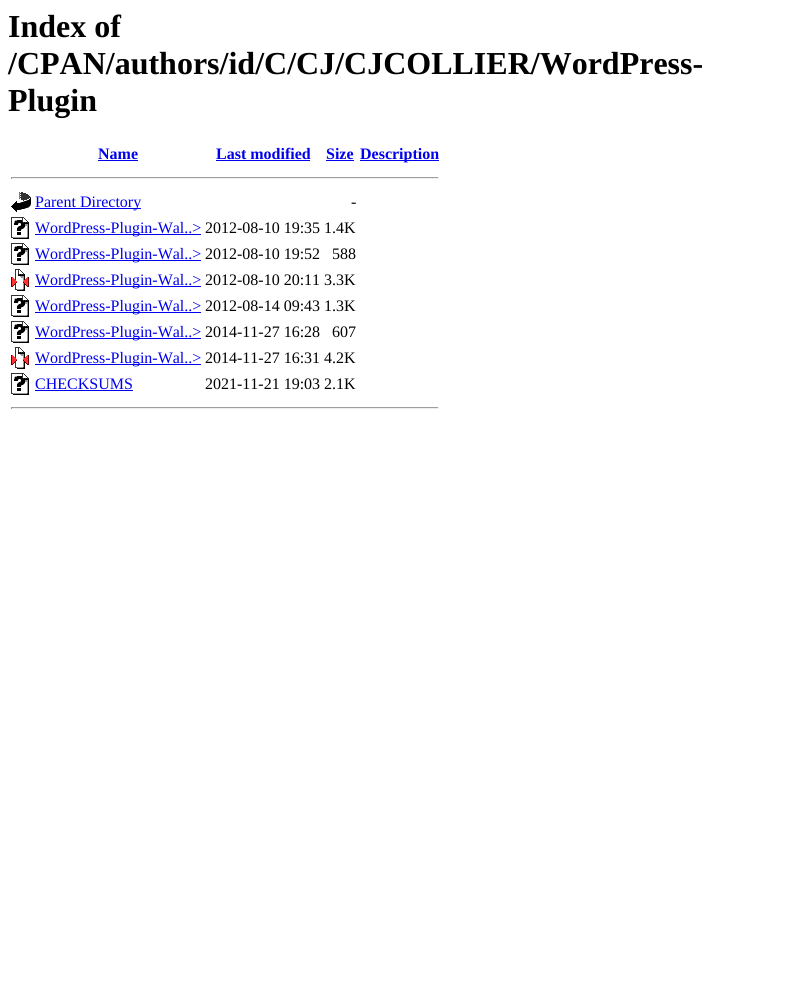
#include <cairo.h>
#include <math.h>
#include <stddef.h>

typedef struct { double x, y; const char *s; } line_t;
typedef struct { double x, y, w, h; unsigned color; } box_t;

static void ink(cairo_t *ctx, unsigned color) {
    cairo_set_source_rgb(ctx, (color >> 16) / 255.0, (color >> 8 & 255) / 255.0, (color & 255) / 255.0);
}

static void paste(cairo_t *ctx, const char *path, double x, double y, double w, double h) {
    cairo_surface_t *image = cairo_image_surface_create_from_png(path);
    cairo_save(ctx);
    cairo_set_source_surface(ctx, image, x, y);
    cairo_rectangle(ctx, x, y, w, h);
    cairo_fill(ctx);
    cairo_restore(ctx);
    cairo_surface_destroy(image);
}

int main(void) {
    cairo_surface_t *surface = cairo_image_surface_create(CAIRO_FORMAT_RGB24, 790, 1004);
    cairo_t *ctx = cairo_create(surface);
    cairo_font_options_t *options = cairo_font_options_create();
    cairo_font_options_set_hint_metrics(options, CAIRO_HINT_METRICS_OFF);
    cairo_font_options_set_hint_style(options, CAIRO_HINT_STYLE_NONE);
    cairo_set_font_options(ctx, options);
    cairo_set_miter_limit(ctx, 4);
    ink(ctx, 0xFFFFFF);
    cairo_paint(ctx);
    cairo_select_font_face(ctx, "Liberation Serif", CAIRO_FONT_SLANT_NORMAL, CAIRO_FONT_WEIGHT_BOLD);
    cairo_set_font_size(ctx, 32);
    ink(ctx, 0x000000);
    {
        static const line_t items[] = {
            {8, 37, "Index of"},
            {8, 74, "/CPAN/authors/id/C/CJ/CJCOLLIER/WordPress-"},
            {8, 111, "Plugin"},
        };
        for (size_t i = 0; i < sizeof items / sizeof *items; i++) {
            cairo_move_to(ctx, items[i].x, items[i].y);
            cairo_show_text(ctx, items[i].s);
        }
    }
    cairo_set_font_size(ctx, 16);
    ink(ctx, 0x0000EE);
    cairo_move_to(ctx, 98, 159);
    cairo_show_text(ctx, "Name");
    cairo_rectangle(ctx, 98, 160, 40, 1);
    cairo_fill(ctx);
    cairo_move_to(ctx, 216, 159);
    cairo_show_text(ctx, "Last modified");
    cairo_rectangle(ctx, 216, 160, 94, 1);
    cairo_fill(ctx);
    cairo_move_to(ctx, 326, 159);
    cairo_show_text(ctx, "Size");
    cairo_rectangle(ctx, 326, 160, 28, 1);
    cairo_fill(ctx);
    cairo_rectangle(ctx, 360, 160, 79, 1);
    cairo_fill(ctx);
    cairo_move_to(ctx, 360, 159);
    cairo_show_text(ctx, "Description");
    {
        static const box_t items[] = {
            {11, 177, 428, 1, 0x9F9F9F},
            {438, 177, 1, 2, 0xEEEEEE},
            {11, 178, 428, 1, 0xEEEEEE},
            {11, 177, 1, 2, 0x9F9F9F},
        };
        for (size_t i = 0; i < sizeof items / sizeof *items; i++) {
            ink(ctx, items[i].color);
            cairo_rectangle(ctx, items[i].x, items[i].y, items[i].w, items[i].h);
            cairo_fill(ctx);
        }
    }
    paste(ctx, "media/1.png", 11, 192, 20, 20);
    ink(ctx, 0x0000EE);
    cairo_rectangle(ctx, 35, 208, 106, 1);
    cairo_fill(ctx);
    cairo_select_font_face(ctx, "Liberation Serif", CAIRO_FONT_SLANT_NORMAL, CAIRO_FONT_WEIGHT_NORMAL);
    cairo_move_to(ctx, 35, 207);
    cairo_show_text(ctx, "Parent Directory");
    ink(ctx, 0x000000);
    cairo_move_to(ctx, 351, 207);
    cairo_show_text(ctx, "-");
    paste(ctx, "media/2.png", 11, 217, 18, 22);
    ink(ctx, 0x0000EE);
    cairo_rectangle(ctx, 35, 234, 166, 1);
    cairo_fill(ctx);
    cairo_move_to(ctx, 35, 233);
    cairo_show_text(ctx, "WordPress-Plugin-Wal..>");
    ink(ctx, 0x000000);
    cairo_move_to(ctx, 205, 233);
    cairo_show_text(ctx, "2012-08-10 19:35 1.4K");
    paste(ctx, "media/2.png", 11, 243, 18, 22);
    ink(ctx, 0x0000EE);
    cairo_rectangle(ctx, 35, 260, 166, 1);
    cairo_fill(ctx);
    cairo_move_to(ctx, 35, 259);
    cairo_show_text(ctx, "WordPress-Plugin-Wal..>");
    ink(ctx, 0x000000);
    cairo_move_to(ctx, 205, 259);
    cairo_show_text(ctx, "2012-08-10 19:52");
    cairo_move_to(ctx, 332, 259);
    cairo_show_text(ctx, "588");
    paste(ctx, "media/3.png", 11, 269, 18, 22);
    ink(ctx, 0x0000EE);
    cairo_rectangle(ctx, 35, 286, 166, 1);
    cairo_fill(ctx);
    cairo_move_to(ctx, 35, 285);
    cairo_show_text(ctx, "WordPress-Plugin-Wal..>");
    ink(ctx, 0x000000);
    cairo_move_to(ctx, 205, 285);
    cairo_show_text(ctx, "2012-08-10 20:11 3.3K");
    paste(ctx, "media/2.png", 11, 295, 18, 22);
    ink(ctx, 0x0000EE);
    cairo_rectangle(ctx, 35, 312, 166, 1);
    cairo_fill(ctx);
    cairo_move_to(ctx, 35, 311);
    cairo_show_text(ctx, "WordPress-Plugin-Wal..>");
    ink(ctx, 0x000000);
    cairo_move_to(ctx, 205, 311);
    cairo_show_text(ctx, "2012-08-14 09:43 1.3K");
    paste(ctx, "media/2.png", 11, 321, 18, 22);
    ink(ctx, 0x0000EE);
    cairo_rectangle(ctx, 35, 338, 166, 1);
    cairo_fill(ctx);
    cairo_move_to(ctx, 35, 337);
    cairo_show_text(ctx, "WordPress-Plugin-Wal..>");
    ink(ctx, 0x000000);
    cairo_move_to(ctx, 205, 337);
    cairo_show_text(ctx, "2014-11-27 16:28");
    cairo_move_to(ctx, 332, 337);
    cairo_show_text(ctx, "607");
    paste(ctx, "media/3.png", 11, 347, 18, 22);
    ink(ctx, 0x0000EE);
    cairo_rectangle(ctx, 35, 364, 166, 1);
    cairo_fill(ctx);
    cairo_move_to(ctx, 35, 363);
    cairo_show_text(ctx, "WordPress-Plugin-Wal..>");
    ink(ctx, 0x000000);
    cairo_move_to(ctx, 205, 363);
    cairo_show_text(ctx, "2014-11-27 16:31 4.2K");
    paste(ctx, "media/2.png", 11, 373, 18, 22);
    ink(ctx, 0x0000EE);
    cairo_move_to(ctx, 35, 389);
    cairo_show_text(ctx, "CHECKSUMS");
    cairo_rectangle(ctx, 35, 390, 98, 1);
    cairo_fill(ctx);
    ink(ctx, 0x000000);
    cairo_move_to(ctx, 205, 389);
    cairo_show_text(ctx, "2021-11-21 19:03 2.1K");
    {
        static const box_t items[] = {
            {11, 407, 428, 1, 0x9F9F9F},
            {438, 407, 1, 2, 0xEEEEEE},
            {11, 408, 428, 1, 0xEEEEEE},
            {11, 407, 1, 2, 0x9F9F9F},
        };
        for (size_t i = 0; i < sizeof items / sizeof *items; i++) {
            ink(ctx, items[i].color);
            cairo_rectangle(ctx, items[i].x, items[i].y, items[i].w, items[i].h);
            cairo_fill(ctx);
        }
    }
    cairo_surface_write_to_png(surface, "image.png");
    cairo_font_options_destroy(options);
    cairo_destroy(ctx);
    cairo_surface_destroy(surface);
    return 0;
}
